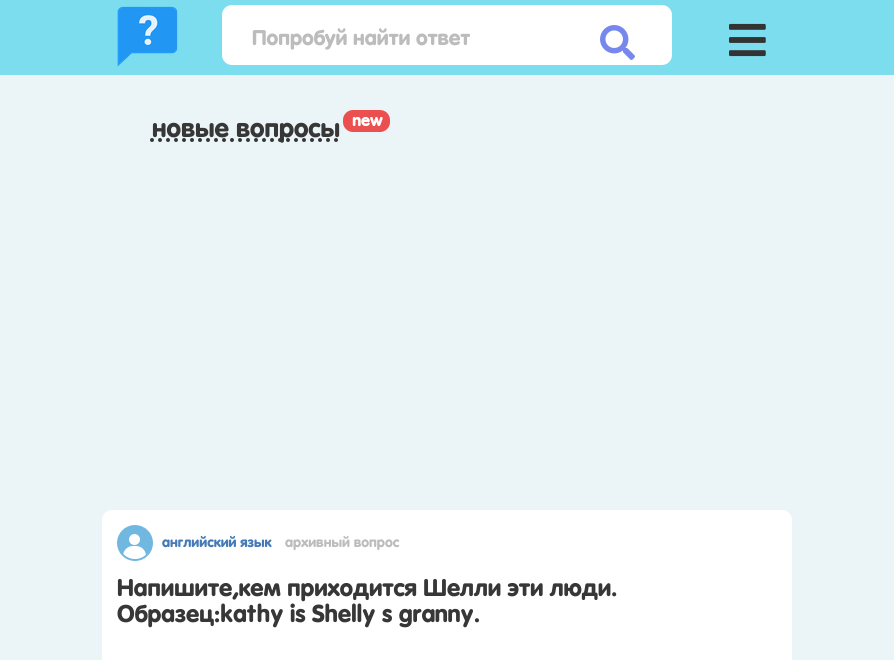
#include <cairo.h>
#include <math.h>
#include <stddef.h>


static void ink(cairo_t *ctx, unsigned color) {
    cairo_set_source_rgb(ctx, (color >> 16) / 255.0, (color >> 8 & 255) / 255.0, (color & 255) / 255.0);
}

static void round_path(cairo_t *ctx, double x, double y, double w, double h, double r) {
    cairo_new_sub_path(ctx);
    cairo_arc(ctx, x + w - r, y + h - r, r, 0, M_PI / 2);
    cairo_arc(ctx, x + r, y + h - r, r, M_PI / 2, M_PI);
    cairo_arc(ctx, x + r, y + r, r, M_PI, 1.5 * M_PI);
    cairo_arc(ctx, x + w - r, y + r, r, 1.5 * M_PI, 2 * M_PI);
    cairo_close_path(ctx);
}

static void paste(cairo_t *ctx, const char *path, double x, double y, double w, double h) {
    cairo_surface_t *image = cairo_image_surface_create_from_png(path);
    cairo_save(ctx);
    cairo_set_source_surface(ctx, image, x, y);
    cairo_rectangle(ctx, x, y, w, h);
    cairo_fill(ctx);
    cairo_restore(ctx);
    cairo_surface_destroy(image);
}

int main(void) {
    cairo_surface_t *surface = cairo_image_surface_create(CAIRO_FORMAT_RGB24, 894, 660);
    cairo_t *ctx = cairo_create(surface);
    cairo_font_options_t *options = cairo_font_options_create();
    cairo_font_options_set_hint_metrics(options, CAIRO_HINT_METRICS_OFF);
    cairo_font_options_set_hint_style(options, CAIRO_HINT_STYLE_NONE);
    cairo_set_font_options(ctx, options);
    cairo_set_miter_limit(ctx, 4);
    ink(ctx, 0xEBF5F7);
    cairo_paint(ctx);
    ink(ctx, 0x7CDDEE);
    cairo_rectangle(ctx, 0, 0, 894, 75);
    cairo_fill(ctx);
    paste(ctx, "media/1.png", 117, 6, 61, 61);
    ink(ctx, 0xFFFFFF);
    round_path(ctx, 222, 5, 450, 60, 10);
    cairo_fill(ctx);
    cairo_select_font_face(ctx, "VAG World", CAIRO_FONT_SLANT_NORMAL, CAIRO_FONT_WEIGHT_BOLD);
    cairo_set_font_size(ctx, 21);
    ink(ctx, 0xBDBCBC);
    cairo_move_to(ctx, 252, 45);
    cairo_show_text(ctx, "Попробуй найти ответ");
    paste(ctx, "media/2.png", 600, 25, 35, 35);
    paste(ctx, "media/3.png", 729, 23, 37, 34);
    cairo_new_path(ctx);
    cairo_move_to(ctx, 152, 140);
    cairo_line_to(ctx, 339, 140);
    ink(ctx, 0x373737);
    cairo_set_line_width(ctx, 4);
    cairo_set_line_cap(ctx, CAIRO_LINE_CAP_ROUND);
    cairo_set_dash(ctx, (double[]){0, 8}, 2, 0);
    cairo_stroke(ctx);
    cairo_set_font_size(ctx, 26);
    cairo_move_to(ctx, 152, 137);
    cairo_show_text(ctx, "новые вопросы");
    paste(ctx, "media/4.png", 343, 110, 47, 22);
    ink(ctx, 0xFFFFFF);
    round_path(ctx, 102, 510, 690, 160, 10);
    cairo_fill(ctx);
    paste(ctx, "media/5.png", 117, 525, 36, 36);
    cairo_set_font_size(ctx, 14);
    ink(ctx, 0x437AB7);
    cairo_move_to(ctx, 162, 547);
    cairo_show_text(ctx, "английский язык");
    ink(ctx, 0xBDBCBC);
    cairo_move_to(ctx, 285, 547);
    cairo_show_text(ctx, "архивный вопрос");
    cairo_set_font_size(ctx, 23.8);
    ink(ctx, 0x373737);
    cairo_move_to(ctx, 117, 596);
    cairo_show_text(ctx, "Напишите,кем приходится Шелли эти люди.");
    cairo_move_to(ctx, 117, 622);
    cairo_show_text(ctx, "Образец:kathy is Shelly s granny.");
    cairo_surface_write_to_png(surface, "image.png");
    cairo_font_options_destroy(options);
    cairo_destroy(ctx);
    cairo_surface_destroy(surface);
    return 0;
}
